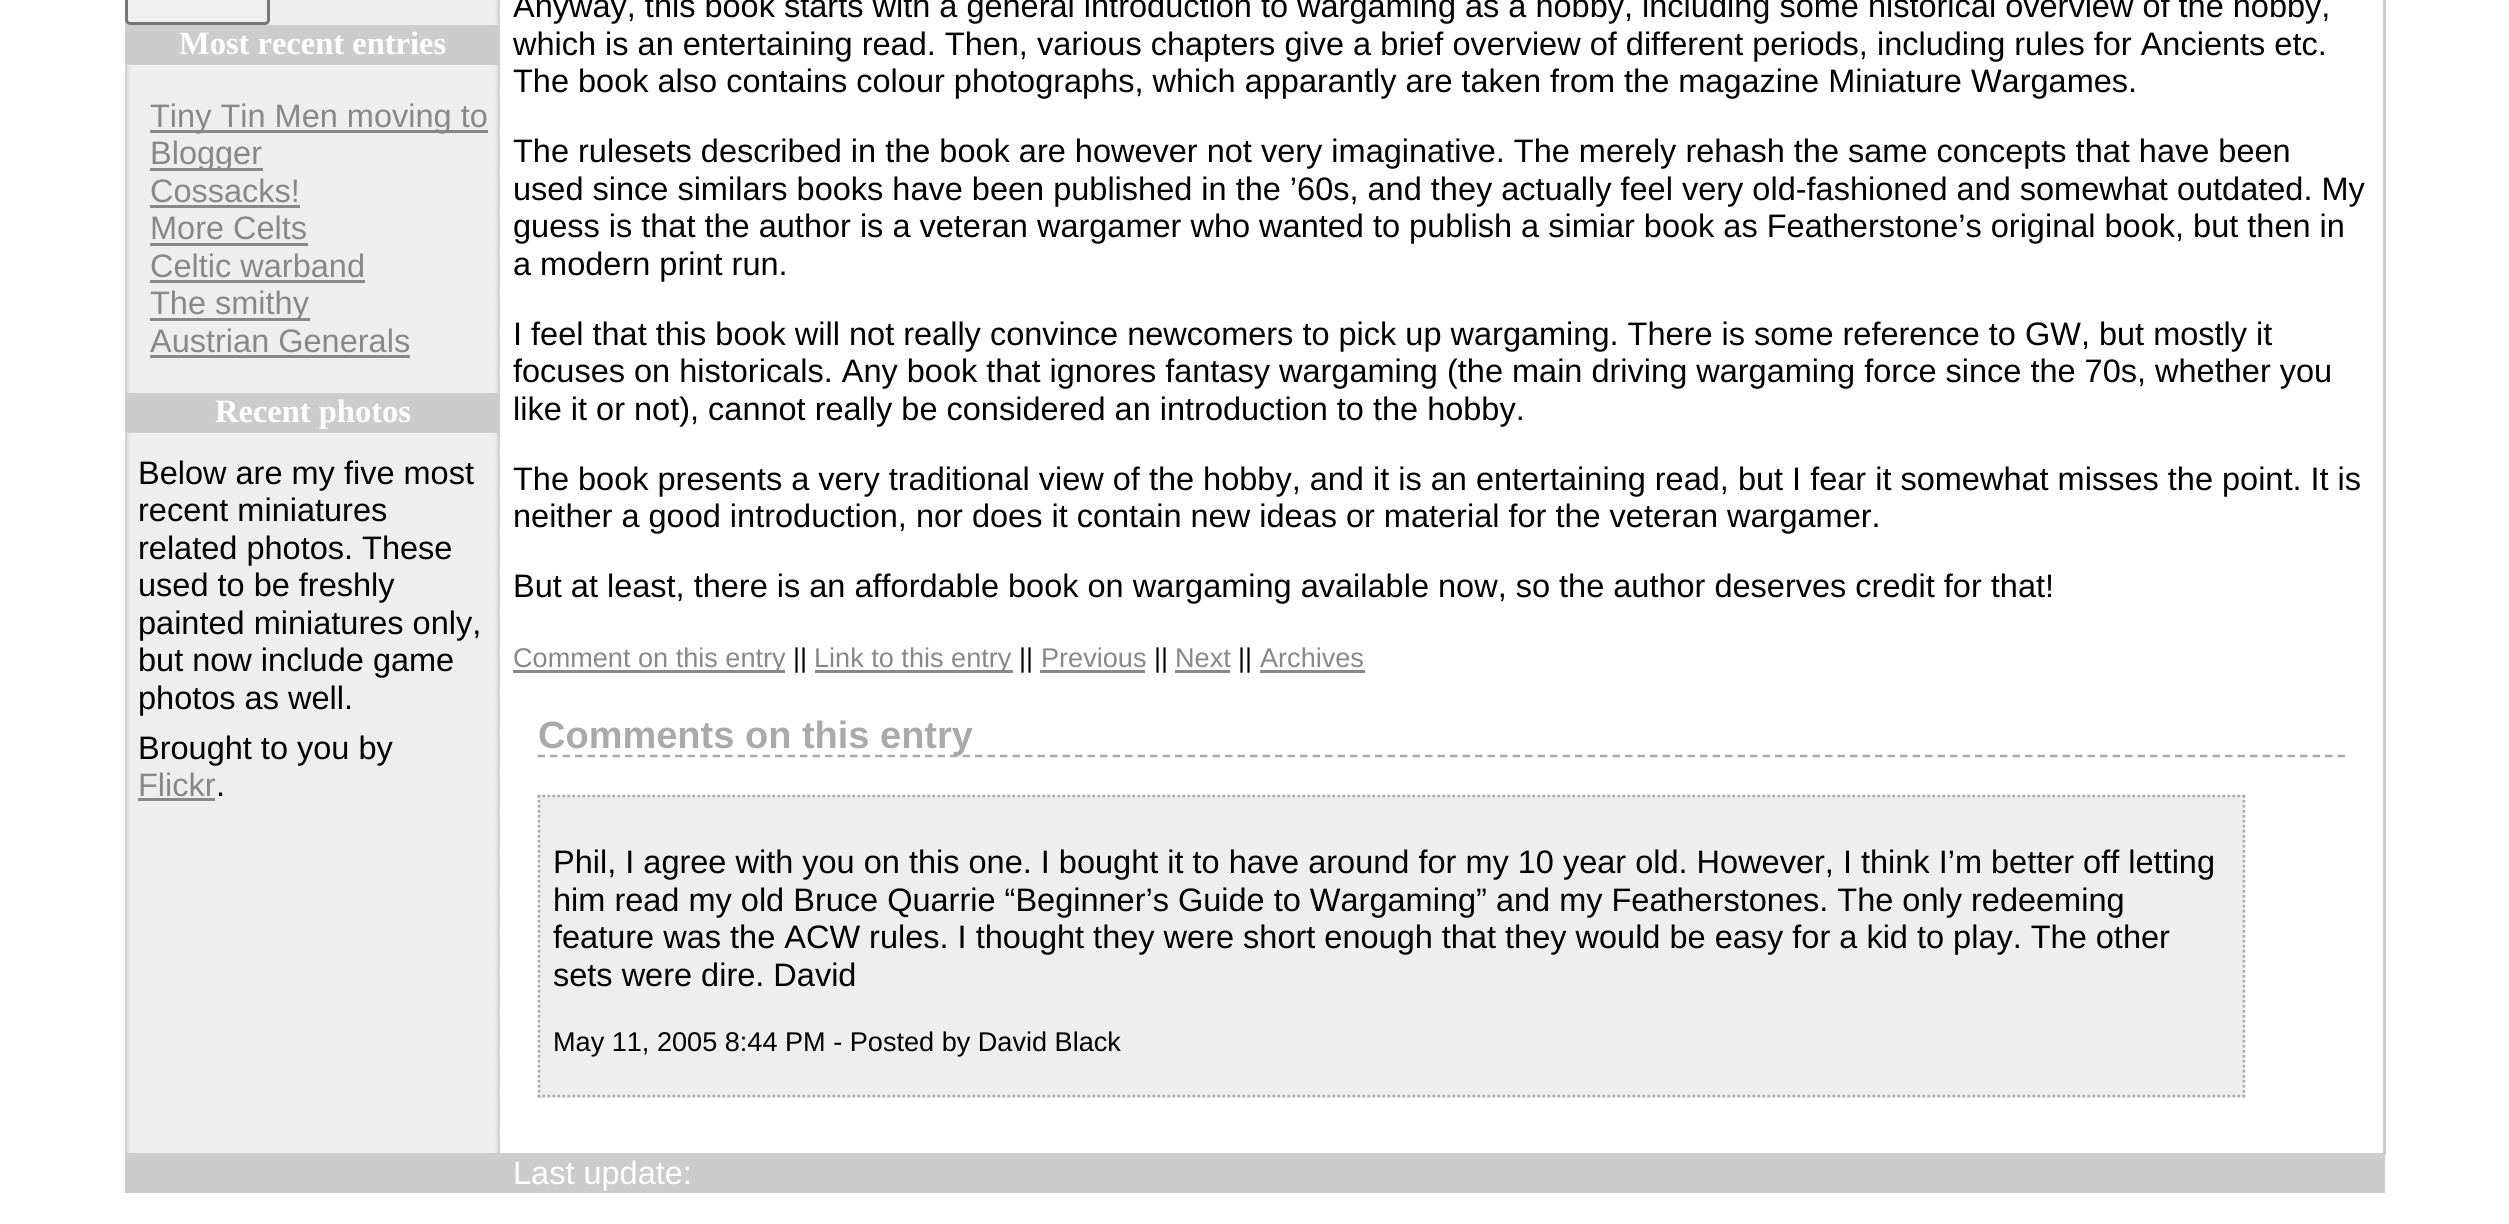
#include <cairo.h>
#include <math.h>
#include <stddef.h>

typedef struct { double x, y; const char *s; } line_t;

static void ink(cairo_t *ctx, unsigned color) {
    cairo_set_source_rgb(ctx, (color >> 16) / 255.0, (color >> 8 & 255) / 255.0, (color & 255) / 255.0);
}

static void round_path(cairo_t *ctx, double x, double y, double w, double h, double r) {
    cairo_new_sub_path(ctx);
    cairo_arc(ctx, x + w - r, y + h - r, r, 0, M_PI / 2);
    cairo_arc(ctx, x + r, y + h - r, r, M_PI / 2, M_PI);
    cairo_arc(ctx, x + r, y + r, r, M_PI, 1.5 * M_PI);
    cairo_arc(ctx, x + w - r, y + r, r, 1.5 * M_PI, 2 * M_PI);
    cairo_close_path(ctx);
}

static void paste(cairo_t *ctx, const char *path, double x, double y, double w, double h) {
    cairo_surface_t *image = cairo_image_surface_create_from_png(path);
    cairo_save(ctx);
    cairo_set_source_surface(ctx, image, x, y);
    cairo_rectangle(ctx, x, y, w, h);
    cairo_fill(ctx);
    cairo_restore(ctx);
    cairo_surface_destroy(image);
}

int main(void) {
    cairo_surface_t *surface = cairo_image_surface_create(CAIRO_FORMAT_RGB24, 2509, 1224);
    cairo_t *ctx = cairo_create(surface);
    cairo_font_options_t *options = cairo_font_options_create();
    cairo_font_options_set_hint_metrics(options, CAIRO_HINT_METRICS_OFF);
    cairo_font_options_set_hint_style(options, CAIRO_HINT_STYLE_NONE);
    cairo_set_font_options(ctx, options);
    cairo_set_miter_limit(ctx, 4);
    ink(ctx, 0xFFFFFF);
    cairo_paint(ctx);
    paste(ctx, "media/1.png", 125, 0, 375, 1153);
    ink(ctx, 0xCCCCCC);
    cairo_rectangle(ctx, 2383, 0, 3, 1155);
    cairo_fill(ctx);
    cairo_rectangle(ctx, 125, 1153, 2260, 40);
    cairo_fill(ctx);
    ink(ctx, 0xEFEFEF);
    round_path(ctx, 126.5, -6.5, 142, 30, 3.5);
    cairo_fill_preserve(ctx);
    ink(ctx, 0x767676);
    cairo_set_line_width(ctx, 3);
    cairo_stroke(ctx);
    ink(ctx, 0xCCCCCC);
    cairo_rectangle(ctx, 125, 25, 375, 40);
    cairo_fill(ctx);
    cairo_select_font_face(ctx, "Liberation Serif", CAIRO_FONT_SLANT_NORMAL, CAIRO_FONT_WEIGHT_BOLD);
    cairo_set_font_size(ctx, 32.5);
    ink(ctx, 0xFFFFFF);
    cairo_move_to(ctx, 179, 54);
    cairo_show_text(ctx, "Most recent entries");
    ink(ctx, 0x888888);
    cairo_rectangle(ctx, 150, 130, 338, 3);
    cairo_fill(ctx);
    cairo_select_font_face(ctx, "Liberation Sans", CAIRO_FONT_SLANT_NORMAL, CAIRO_FONT_WEIGHT_NORMAL);
    cairo_move_to(ctx, 150, 127);
    cairo_show_text(ctx, "Tiny Tin Men moving to");
    cairo_rectangle(ctx, 150, 168, 113, 3);
    cairo_fill(ctx);
    cairo_move_to(ctx, 150, 164);
    cairo_show_text(ctx, "Blogger");
    cairo_move_to(ctx, 150, 202);
    cairo_show_text(ctx, "Cossacks!");
    cairo_rectangle(ctx, 150, 205, 150, 3);
    cairo_fill(ctx);
    cairo_move_to(ctx, 150, 239);
    cairo_show_text(ctx, "More Celts");
    cairo_rectangle(ctx, 150, 243, 158, 3);
    cairo_fill(ctx);
    cairo_move_to(ctx, 150, 277);
    cairo_show_text(ctx, "Celtic warband");
    cairo_rectangle(ctx, 150, 280, 215, 3);
    cairo_fill(ctx);
    cairo_rectangle(ctx, 150, 318, 160, 3);
    cairo_fill(ctx);
    cairo_move_to(ctx, 150, 314);
    cairo_show_text(ctx, "The smithy");
    cairo_move_to(ctx, 150, 352);
    cairo_show_text(ctx, "Austrian Generals");
    cairo_rectangle(ctx, 150, 355, 260, 3);
    cairo_fill(ctx);
    ink(ctx, 0xCCCCCC);
    cairo_rectangle(ctx, 125, 393, 375, 40);
    cairo_fill(ctx);
    cairo_select_font_face(ctx, "Liberation Serif", CAIRO_FONT_SLANT_NORMAL, CAIRO_FONT_WEIGHT_BOLD);
    ink(ctx, 0xFFFFFF);
    cairo_move_to(ctx, 215, 422);
    cairo_show_text(ctx, "Recent photos");
    cairo_select_font_face(ctx, "Liberation Sans", CAIRO_FONT_SLANT_NORMAL, CAIRO_FONT_WEIGHT_NORMAL);
    ink(ctx, 0x000000);
    {
        static const line_t items[] = {
            {138, 484, "Below are my five most"},
            {138, 521, "recent miniatures"},
            {138, 559, "related photos. These"},
            {138, 596, "used to be freshly"},
            {138, 634, "painted miniatures only,"},
            {138, 671, "but now include game"},
            {138, 709, "photos as well."},
            {138, 759, "Brought to you by"},
        };
        for (size_t i = 0; i < sizeof items / sizeof *items; i++) {
            cairo_move_to(ctx, items[i].x, items[i].y);
            cairo_show_text(ctx, items[i].s);
        }
    }
    ink(ctx, 0x888888);
    cairo_move_to(ctx, 138, 796);
    cairo_show_text(ctx, "Flickr");
    cairo_rectangle(ctx, 138, 798, 77, 3);
    cairo_fill(ctx);
    ink(ctx, 0x000000);
    {
        static const line_t items[] = {
            {216, 796, "."},
            {513, 17, "Anyway, this book starts with a general introduction to wargaming as a hobby, including some historical overview of the hobby,"},
            {513, 55, "which is an entertaining read. Then, various chapters give a brief overview of different periods, including rules for Ancients etc."},
            {513, 92, "The book also contains colour photographs, which apparantly are taken from the magazine Miniature Wargames."},
            {513, 162, "The rulesets described in the book are however not very imaginative. The merely rehash the same concepts that have been"},
            {513, 200, "used since similars books have been published in the ’60s, and they actually feel very old-fashioned and somewhat outdated. My"},
            {513, 237, "guess is that the author is a veteran wargamer who wanted to publish a simiar book as Featherstone’s original book, but then in"},
            {513, 275, "a modern print run."},
            {513, 345, "I feel that this book will not really convince newcomers to pick up wargaming. There is some reference to GW, but mostly it"},
            {513, 382, "focuses on historicals. Any book that ignores fantasy wargaming (the main driving wargaming force since the 70s, whether you"},
            {513, 420, "like it or not), cannot really be considered an introduction to the hobby."},
            {513, 490, "The book presents a very traditional view of the hobby, and it is an entertaining read, but I fear it somewhat misses the point. It is"},
            {513, 527, "neither a good introduction, nor does it contain new ideas or material for the veteran wargamer."},
            {513, 597, "But at least, there is an affordable book on wargaming available now, so the author deserves credit for that!"},
        };
        for (size_t i = 0; i < sizeof items / sizeof *items; i++) {
            cairo_move_to(ctx, items[i].x, items[i].y);
            cairo_show_text(ctx, items[i].s);
        }
    }
    ink(ctx, 0x888888);
    cairo_rectangle(ctx, 513, 670, 272, 3);
    cairo_fill(ctx);
    cairo_set_font_size(ctx, 27.1);
    cairo_move_to(ctx, 513, 667);
    cairo_show_text(ctx, "Comment on this entry");
    ink(ctx, 0x000000);
    cairo_move_to(ctx, 793, 667);
    cairo_show_text(ctx, "||");
    ink(ctx, 0x888888);
    cairo_rectangle(ctx, 815, 670, 198, 3);
    cairo_fill(ctx);
    cairo_move_to(ctx, 814, 667);
    cairo_show_text(ctx, "Link to this entry");
    ink(ctx, 0x000000);
    cairo_move_to(ctx, 1019, 667);
    cairo_show_text(ctx, "||");
    ink(ctx, 0x888888);
    cairo_move_to(ctx, 1041, 667);
    cairo_show_text(ctx, "Previous");
    cairo_rectangle(ctx, 1040, 670, 105, 3);
    cairo_fill(ctx);
    ink(ctx, 0x000000);
    cairo_move_to(ctx, 1154, 667);
    cairo_show_text(ctx, "||");
    ink(ctx, 0x888888);
    cairo_move_to(ctx, 1175, 667);
    cairo_show_text(ctx, "Next");
    cairo_rectangle(ctx, 1175, 670, 55, 3);
    cairo_fill(ctx);
    ink(ctx, 0x000000);
    cairo_move_to(ctx, 1238, 667);
    cairo_show_text(ctx, "||");
    ink(ctx, 0x888888);
    cairo_move_to(ctx, 1260, 667);
    cairo_show_text(ctx, "Archives");
    cairo_rectangle(ctx, 1260, 670, 105, 3);
    cairo_fill(ctx);
    cairo_new_path(ctx);
    cairo_move_to(ctx, 537.5, 756);
    cairo_line_to(ctx, 2345, 756);
    ink(ctx, 0xAAAAAA);
    cairo_set_line_width(ctx, 2.5);
    cairo_set_dash(ctx, (double[]){7.5, 5}, 2, 0);
    cairo_stroke(ctx);
    cairo_select_font_face(ctx, "Liberation Sans", CAIRO_FONT_SLANT_NORMAL, CAIRO_FONT_WEIGHT_BOLD);
    cairo_set_font_size(ctx, 38);
    cairo_move_to(ctx, 538, 748);
    cairo_show_text(ctx, "Comments on this entry");
    ink(ctx, 0xEEEEEE);
    cairo_rectangle(ctx, 538, 795, 1707, 303);
    cairo_fill(ctx);
    cairo_new_path(ctx);
    cairo_move_to(ctx, 537.5, 796);
    cairo_line_to(ctx, 2245, 796);
    ink(ctx, 0xAAAAAA);
    cairo_set_dash(ctx, (double[]){2.5, 2.5}, 2, 0);
    cairo_stroke(ctx);
    cairo_new_path(ctx);
    cairo_move_to(ctx, 2244, 795);
    cairo_line_to(ctx, 2244, 1097.5);
    cairo_stroke(ctx);
    cairo_new_path(ctx);
    cairo_move_to(ctx, 537.5, 1096);
    cairo_line_to(ctx, 2245, 1096);
    cairo_stroke(ctx);
    cairo_new_path(ctx);
    cairo_move_to(ctx, 539, 795);
    cairo_line_to(ctx, 539, 1097.5);
    cairo_stroke(ctx);
    cairo_select_font_face(ctx, "Liberation Sans", CAIRO_FONT_SLANT_NORMAL, CAIRO_FONT_WEIGHT_NORMAL);
    cairo_set_font_size(ctx, 32.5);
    ink(ctx, 0x000000);
    {
        static const line_t items[] = {
            {553, 873, "Phil, I agree with you on this one. I bought it to have around for my 10 year old. However, I think I’m better off letting"},
            {553, 911, "him read my old Bruce Quarrie “Beginner’s Guide to Wargaming” and my Featherstones. The only redeeming"},
            {553, 948, "feature was the ACW rules. I thought they were short enough that they would be easy for a kid to play. The other"},
            {553, 986, "sets were dire. David"},
        };
        for (size_t i = 0; i < sizeof items / sizeof *items; i++) {
            cairo_move_to(ctx, items[i].x, items[i].y);
            cairo_show_text(ctx, items[i].s);
        }
    }
    cairo_set_font_size(ctx, 27.1);
    cairo_move_to(ctx, 553, 1051);
    cairo_show_text(ctx, "May 11, 2005 8:44 PM - Posted by David Black");
    cairo_set_font_size(ctx, 32.5);
    ink(ctx, 0xFFFFFF);
    cairo_move_to(ctx, 513, 1184);
    cairo_show_text(ctx, "Last update:");
    cairo_surface_write_to_png(surface, "image.png");
    cairo_font_options_destroy(options);
    cairo_destroy(ctx);
    cairo_surface_destroy(surface);
    return 0;
}
